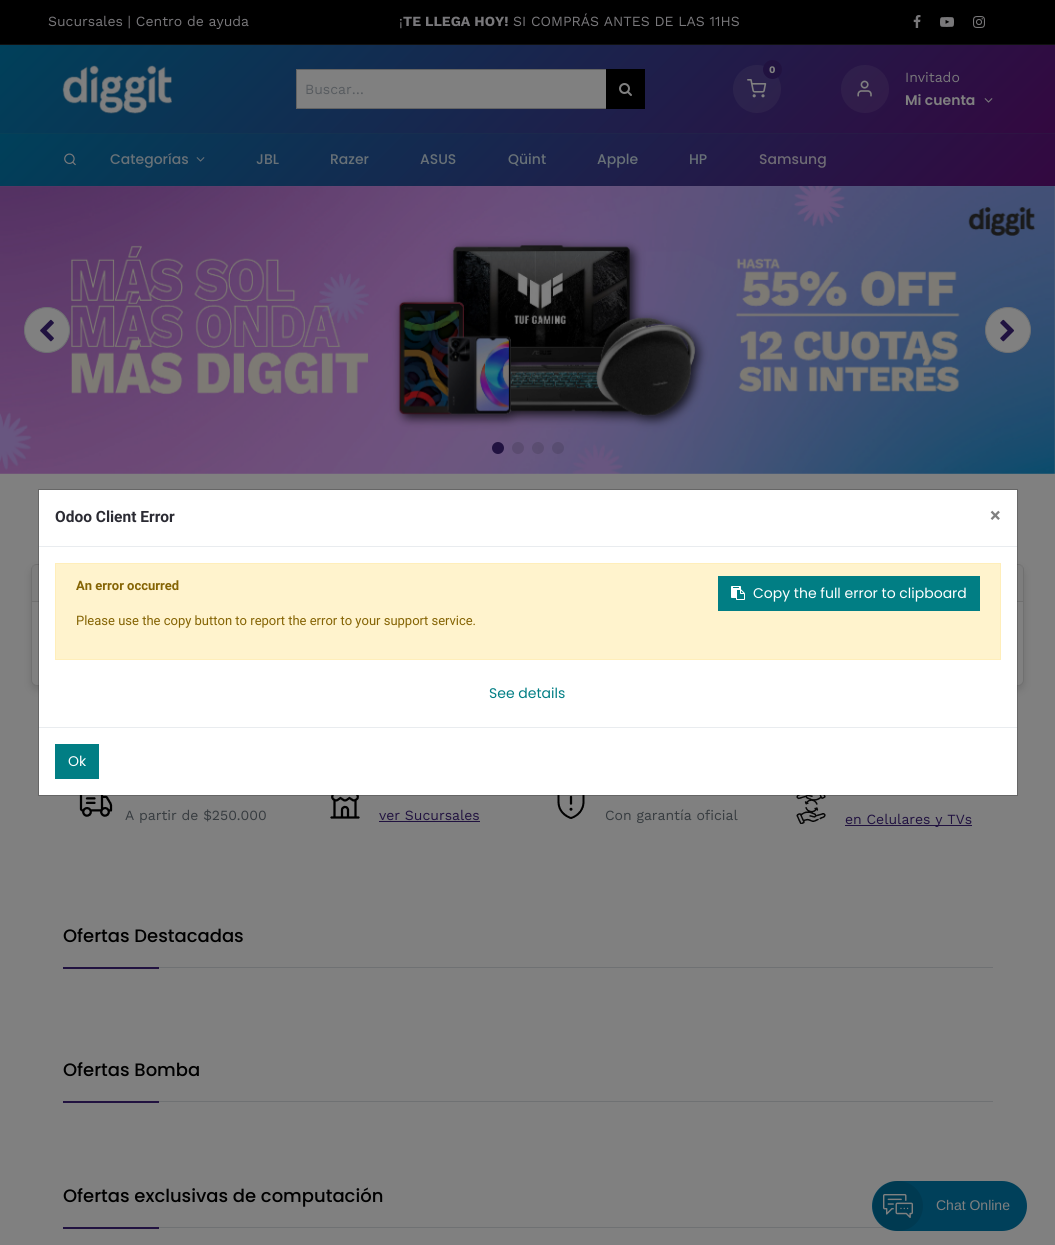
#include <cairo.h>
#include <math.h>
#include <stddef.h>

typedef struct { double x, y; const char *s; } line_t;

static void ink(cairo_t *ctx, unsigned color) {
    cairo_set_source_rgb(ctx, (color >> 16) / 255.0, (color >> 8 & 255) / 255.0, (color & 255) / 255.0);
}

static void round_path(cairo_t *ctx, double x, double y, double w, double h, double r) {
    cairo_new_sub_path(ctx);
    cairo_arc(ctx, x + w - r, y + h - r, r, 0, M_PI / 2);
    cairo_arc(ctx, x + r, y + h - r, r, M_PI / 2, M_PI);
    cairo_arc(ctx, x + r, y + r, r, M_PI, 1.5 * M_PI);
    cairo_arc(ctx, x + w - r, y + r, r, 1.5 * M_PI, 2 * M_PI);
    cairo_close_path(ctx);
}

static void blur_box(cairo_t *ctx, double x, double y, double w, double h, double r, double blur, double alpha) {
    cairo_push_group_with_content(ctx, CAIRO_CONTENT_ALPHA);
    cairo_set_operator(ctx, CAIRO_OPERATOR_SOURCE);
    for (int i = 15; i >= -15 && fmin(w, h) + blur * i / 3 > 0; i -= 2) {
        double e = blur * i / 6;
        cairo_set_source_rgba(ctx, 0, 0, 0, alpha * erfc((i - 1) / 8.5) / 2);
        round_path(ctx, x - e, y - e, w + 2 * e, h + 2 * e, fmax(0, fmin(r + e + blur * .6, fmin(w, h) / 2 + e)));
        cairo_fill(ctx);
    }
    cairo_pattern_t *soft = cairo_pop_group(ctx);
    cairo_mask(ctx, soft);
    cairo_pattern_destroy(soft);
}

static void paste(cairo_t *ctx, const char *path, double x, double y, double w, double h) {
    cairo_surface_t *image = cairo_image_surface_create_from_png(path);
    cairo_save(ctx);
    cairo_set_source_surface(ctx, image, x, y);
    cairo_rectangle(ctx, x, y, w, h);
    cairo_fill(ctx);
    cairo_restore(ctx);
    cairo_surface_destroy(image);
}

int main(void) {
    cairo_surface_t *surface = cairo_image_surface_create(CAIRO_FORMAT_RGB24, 1055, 1245);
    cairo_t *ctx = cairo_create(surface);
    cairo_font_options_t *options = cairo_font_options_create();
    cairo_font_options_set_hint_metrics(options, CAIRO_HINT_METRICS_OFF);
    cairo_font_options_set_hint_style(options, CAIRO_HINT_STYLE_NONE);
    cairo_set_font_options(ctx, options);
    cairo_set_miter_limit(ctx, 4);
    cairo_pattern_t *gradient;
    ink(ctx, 0x808080);
    cairo_paint(ctx);
    ink(ctx, 0x000000);
    cairo_rectangle(ctx, 0, 0, 1055, 44);
    cairo_fill(ctx);
    ink(ctx, 0x101010);
    cairo_rectangle(ctx, 0, 44, 1055, 1);
    cairo_fill(ctx);
    cairo_select_font_face(ctx, "Work Sans", CAIRO_FONT_SLANT_NORMAL, CAIRO_FONT_WEIGHT_NORMAL);
    cairo_set_font_size(ctx, 14);
    ink(ctx, 0x79787B);
    cairo_move_to(ctx, 48, 26);
    cairo_show_text(ctx, "Sucursales | Centro de ayuda");
    cairo_move_to(ctx, 399, 26);
    cairo_show_text(ctx, "¡");
    cairo_select_font_face(ctx, "Work Sans", CAIRO_FONT_SLANT_NORMAL, CAIRO_FONT_WEIGHT_BOLD);
    cairo_move_to(ctx, 403, 26);
    cairo_show_text(ctx, "TE LLEGA HOY!");
    cairo_select_font_face(ctx, "Work Sans", CAIRO_FONT_SLANT_NORMAL, CAIRO_FONT_WEIGHT_NORMAL);
    cairo_move_to(ctx, 513, 26);
    cairo_show_text(ctx, "SI COMPRÁS ANTES DE LAS 11HS");
    paste(ctx, "media/1.png", 913, 15, 8, 13);
    paste(ctx, "media/2.png", 940, 17, 14, 10);
    paste(ctx, "media/3.png", 973, 16, 12, 12);
    gradient = cairo_pattern_create_linear(242, -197, 813, 375);
    cairo_pattern_add_color_stop_rgba(gradient, 0, 0, 0.251, 0.353, 1);
    cairo_pattern_add_color_stop_rgba(gradient, 1, 0.2, 0.031, 0.251, 1);
    cairo_set_source(ctx, gradient);
    cairo_pattern_destroy(gradient);
    cairo_rectangle(ctx, 0, 45, 1055, 88);
    cairo_fill(ctx);
    gradient = cairo_pattern_create_linear(242, -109, 813, 463);
    cairo_pattern_add_color_stop_rgba(gradient, 0, 0.027, 0.251, 0.341, 1);
    cairo_pattern_add_color_stop_rgba(gradient, 1, 0.2, 0.055, 0.251, 1);
    cairo_set_source(ctx, gradient);
    cairo_pattern_destroy(gradient);
    cairo_rectangle(ctx, 0, 133, 1055, 1);
    cairo_fill(ctx);
    paste(ctx, "media/4.png", 62, 65, 110, 49);
    ink(ctx, 0x808080);
    cairo_rectangle(ctx, 296.5, 69.5, 310, 39);
    cairo_fill_preserve(ctx);
    ink(ctx, 0x636363);
    cairo_set_line_width(ctx, 1);
    cairo_stroke(ctx);
    ink(ctx, 0x575B5F);
    cairo_move_to(ctx, 305, 94);
    cairo_show_text(ctx, "Buscar…");
    ink(ctx, 0x000000);
    cairo_rectangle(ctx, 606, 69, 39, 40);
    cairo_fill(ctx);
    paste(ctx, "media/5.png", 619, 83, 13, 13);
    cairo_set_source_rgba(ctx, 0.502, 0.502, 0.502, 0.1);
    cairo_arc(ctx, 757, 89, 24, 0, 2 * M_PI);
    cairo_fill(ctx);
    paste(ctx, "media/6.png", 747, 79, 20, 19);
    ink(ctx, 0x211240);
    cairo_arc(ctx, 772.5, 69.5, 9.5, 0, 2 * M_PI);
    cairo_fill(ctx);
    cairo_select_font_face(ctx, "Work Sans", CAIRO_FONT_SLANT_NORMAL, CAIRO_FONT_WEIGHT_BOLD);
    cairo_set_font_size(ctx, 10);
    ink(ctx, 0x808080);
    cairo_move_to(ctx, 769, 73);
    cairo_show_text(ctx, "0");
    cairo_set_source_rgba(ctx, 0.502, 0.502, 0.502, 0.1);
    cairo_new_path(ctx);
    cairo_arc(ctx, 865, 89, 24, 0, 2 * M_PI);
    cairo_fill(ctx);
    paste(ctx, "media/7.png", 857, 80, 15, 17);
    cairo_select_font_face(ctx, "Work Sans", CAIRO_FONT_SLANT_NORMAL, CAIRO_FONT_WEIGHT_NORMAL);
    cairo_set_font_size(ctx, 14);
    ink(ctx, 0x79787B);
    cairo_move_to(ctx, 905, 82);
    cairo_show_text(ctx, "Invitado");
    cairo_select_font_face(ctx, "Poppins SemiBold", CAIRO_FONT_SLANT_NORMAL, CAIRO_FONT_WEIGHT_NORMAL);
    ink(ctx, 0x808080);
    cairo_move_to(ctx, 905, 105);
    cairo_show_text(ctx, "Mi cuenta");
    paste(ctx, "media/8.png", 984, 98, 9, 5);
    gradient = cairo_pattern_create_linear(251, -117, 804, 437);
    cairo_pattern_add_color_stop_rgba(gradient, 0, 0, 0.251, 0.353, 1);
    cairo_pattern_add_color_stop_rgba(gradient, 1, 0.2, 0.031, 0.251, 1);
    cairo_set_source(ctx, gradient);
    cairo_pattern_destroy(gradient);
    cairo_rectangle(ctx, 0, 134, 1055, 52);
    cairo_fill(ctx);
    paste(ctx, "media/9.png", 64, 153, 12, 13);
    cairo_select_font_face(ctx, "Poppins Medium", CAIRO_FONT_SLANT_NORMAL, CAIRO_FONT_WEIGHT_NORMAL);
    ink(ctx, 0x687177);
    cairo_move_to(ctx, 110, 164);
    cairo_show_text(ctx, "Categorías");
    paste(ctx, "media/10.png", 196, 157, 9, 5);
    {
        static const line_t items[] = {
            {256, 164, "JBL"},
            {330, 164, "Razer"},
            {420, 164, "ASUS"},
            {508, 164, "Qüint"},
            {597, 164, "Apple"},
            {689, 164, "HP"},
        };
        for (size_t i = 0; i < sizeof items / sizeof *items; i++) {
            cairo_move_to(ctx, items[i].x, items[i].y);
            cairo_show_text(ctx, items[i].s);
        }
    }
    ink(ctx, 0x6E6B74);
    cairo_move_to(ctx, 759, 164);
    cairo_show_text(ctx, "Samsung");
    paste(ctx, "media/11.png", 0, 186, 1055, 288);
    ink(ctx, 0x808080);
    cairo_arc(ctx, 47, 330, 22.5, 0, 2 * M_PI);
    cairo_fill_preserve(ctx);
    ink(ctx, 0x6F7173);
    cairo_stroke(ctx);
    paste(ctx, "media/12.png", 40, 319, 14, 23);
    ink(ctx, 0x808080);
    cairo_arc(ctx, 1008, 330, 22.5, 0, 2 * M_PI);
    cairo_fill_preserve(ctx);
    ink(ctx, 0x6F7173);
    cairo_stroke(ctx);
    paste(ctx, "media/13.png", 1000, 319, 14, 23);
    ink(ctx, 0x211240);
    cairo_arc(ctx, 498, 448, 6, 0, 2 * M_PI);
    cairo_fill(ctx);
    ink(ctx, 0x5B4C70);
    cairo_arc(ctx, 518, 448, 6, 0, 2 * M_PI);
    cairo_fill(ctx);
    cairo_set_source_rgba(ctx, 0, 0, 0, 0.12);
    cairo_arc(ctx, 538, 448, 6, 0, 2 * M_PI);
    cairo_fill(ctx);
    cairo_arc(ctx, 558, 448, 6, 0, 2 * M_PI);
    cairo_fill(ctx);
    ink(ctx, 0x000000);
    blur_box(ctx, 31, 568, 236, 122, 6, 4, 0.12);
    ink(ctx, 0x808080);
    round_path(ctx, 31.5, 564.5, 235, 121, 5.5);
    cairo_fill_preserve(ctx);
    ink(ctx, 0x707070);
    cairo_stroke(ctx);
    cairo_set_source_rgba(ctx, 0.482, 0.482, 0.482, 0.52);
    cairo_rectangle(ctx, 32, 565, 7, 36);
    cairo_fill(ctx);
    ink(ctx, 0x707070);
    cairo_rectangle(ctx, 32, 601, 7, 1);
    cairo_fill(ctx);
    ink(ctx, 0x000000);
    blur_box(ctx, 788, 568, 236, 122, 6, 4, 0.12);
    ink(ctx, 0x808080);
    round_path(ctx, 788.5, 564.5, 235, 121, 5.5);
    cairo_fill_preserve(ctx);
    ink(ctx, 0x707070);
    cairo_stroke(ctx);
    cairo_set_source_rgba(ctx, 0.482, 0.482, 0.482, 0.52);
    cairo_rectangle(ctx, 1017, 565, 6, 36);
    cairo_fill(ctx);
    ink(ctx, 0x707070);
    cairo_rectangle(ctx, 1017, 601, 6, 1);
    cairo_fill(ctx);
    paste(ctx, "media/14.png", 79, 795, 34, 22);
    cairo_select_font_face(ctx, "Work Sans", CAIRO_FONT_SLANT_NORMAL, CAIRO_FONT_WEIGHT_NORMAL);
    ink(ctx, 0x363B3F);
    cairo_move_to(ctx, 125, 820);
    cairo_show_text(ctx, "A partir de $250.000");
    paste(ctx, "media/15.png", 330, 795, 30, 24);
    ink(ctx, 0x211240);
    cairo_move_to(ctx, 379, 820);
    cairo_show_text(ctx, "ver Sucursales");
    cairo_rectangle(ctx, 379, 821, 101, 1);
    cairo_fill(ctx);
    paste(ctx, "media/16.png", 557, 795, 28, 24);
    ink(ctx, 0x363B3F);
    cairo_move_to(ctx, 605, 820);
    cairo_show_text(ctx, "Con garantía oficial");
    paste(ctx, "media/17.png", 796, 795, 30, 29);
    ink(ctx, 0x211240);
    cairo_rectangle(ctx, 845, 825, 127, 1);
    cairo_fill(ctx);
    cairo_move_to(ctx, 845, 824);
    cairo_show_text(ctx, "en Celulares y TVs");
    ink(ctx, 0x6F7173);
    cairo_rectangle(ctx, 159, 967, 834, 1);
    cairo_fill(ctx);
    cairo_select_font_face(ctx, "Poppins Medium", CAIRO_FONT_SLANT_NORMAL, CAIRO_FONT_WEIGHT_NORMAL);
    cairo_set_font_size(ctx, 18);
    ink(ctx, 0x000000);
    cairo_move_to(ctx, 63, 942);
    cairo_show_text(ctx, "Ofertas Destacadas");
    ink(ctx, 0x211240);
    cairo_rectangle(ctx, 63, 967, 96, 2);
    cairo_fill(ctx);
    ink(ctx, 0x6F7173);
    cairo_rectangle(ctx, 159, 1101, 834, 1);
    cairo_fill(ctx);
    ink(ctx, 0x000000);
    cairo_move_to(ctx, 63, 1076);
    cairo_show_text(ctx, "Ofertas Bomba");
    ink(ctx, 0x211240);
    cairo_rectangle(ctx, 63, 1101, 96, 2);
    cairo_fill(ctx);
    ink(ctx, 0x6F7173);
    cairo_rectangle(ctx, 159, 1227, 727, 1);
    cairo_fill(ctx);
    ink(ctx, 0x000000);
    cairo_move_to(ctx, 63, 1202);
    cairo_show_text(ctx, "Ofertas exclusivas de computación");
    ink(ctx, 0x211240);
    cairo_rectangle(ctx, 63, 1227, 96, 2);
    cairo_fill(ctx);
    ink(ctx, 0xFFFFFF);
    cairo_rectangle(ctx, 39, 490, 978, 305);
    cairo_fill(ctx);
    cairo_rectangle(ctx, 38.5, 489.5, 979, 306);
    cairo_set_source_rgba(ctx, 0, 0, 0, 0.2);
    cairo_stroke(ctx);
    ink(ctx, 0xE9ECEF);
    cairo_rectangle(ctx, 39, 546, 978, 1);
    cairo_fill(ctx);
    cairo_select_font_face(ctx, "Roboto", CAIRO_FONT_SLANT_NORMAL, CAIRO_FONT_WEIGHT_BOLD);
    cairo_set_font_size(ctx, 15.5);
    ink(ctx, 0x2B2B33);
    cairo_move_to(ctx, 55, 522);
    cairo_show_text(ctx, "Odoo Client Error");
    cairo_set_font_size(ctx, 20);
    ink(ctx, 0x808080);
    cairo_move_to(ctx, 990, 522);
    cairo_show_text(ctx, "×");
    ink(ctx, 0xFFF3CD);
    cairo_rectangle(ctx, 55.5, 563.5, 945, 96);
    cairo_fill_preserve(ctx);
    ink(ctx, 0xFFEEBA);
    cairo_stroke(ctx);
    cairo_set_font_size(ctx, 13);
    ink(ctx, 0x856404);
    cairo_move_to(ctx, 76, 590);
    cairo_show_text(ctx, "An error occurred");
    ink(ctx, 0x017E84);
    cairo_rectangle(ctx, 718, 576, 262, 35);
    cairo_fill(ctx);
    paste(ctx, "media/18.png", 731, 586, 14, 14);
    cairo_select_font_face(ctx, "Poppins", CAIRO_FONT_SLANT_NORMAL, CAIRO_FONT_WEIGHT_NORMAL);
    cairo_set_font_size(ctx, 14);
    ink(ctx, 0xFFFFFF);
    cairo_move_to(ctx, 753, 598);
    cairo_show_text(ctx, "Copy the full error to clipboard");
    cairo_select_font_face(ctx, "Roboto", CAIRO_FONT_SLANT_NORMAL, CAIRO_FONT_WEIGHT_NORMAL);
    cairo_set_font_size(ctx, 13);
    ink(ctx, 0x856404);
    cairo_move_to(ctx, 76, 625);
    cairo_show_text(ctx, "Please use the copy button to report the error to your support service.");
    cairo_select_font_face(ctx, "Poppins", CAIRO_FONT_SLANT_NORMAL, CAIRO_FONT_WEIGHT_NORMAL);
    cairo_set_font_size(ctx, 14);
    ink(ctx, 0x017E84);
    cairo_move_to(ctx, 489, 698);
    cairo_show_text(ctx, "See details");
    ink(ctx, 0xE9ECEF);
    cairo_rectangle(ctx, 39, 727, 978, 1);
    cairo_fill(ctx);
    ink(ctx, 0x017E84);
    cairo_rectangle(ctx, 55, 744, 44, 35);
    cairo_fill(ctx);
    ink(ctx, 0xFFFFFF);
    cairo_move_to(ctx, 68, 766);
    cairo_show_text(ctx, "Ok");
    ink(ctx, 0x00405A);
    round_path(ctx, 872, 1181, 155, 50, 25);
    cairo_fill(ctx);
    cairo_set_source_rgba(ctx, 0, 0, 0, 0.1);
    cairo_arc(ctx, 898, 1206, 25, 0, 2 * M_PI);
    cairo_fill(ctx);
    paste(ctx, "media/19.png", 883, 1194, 30, 24);
    cairo_select_font_face(ctx, "Liberation Sans", CAIRO_FONT_SLANT_NORMAL, CAIRO_FONT_WEIGHT_NORMAL);
    ink(ctx, 0x808080);
    cairo_move_to(ctx, 936, 1210);
    cairo_show_text(ctx, "Chat Online");
    cairo_surface_write_to_png(surface, "image.png");
    cairo_font_options_destroy(options);
    cairo_destroy(ctx);
    cairo_surface_destroy(surface);
    return 0;
}
